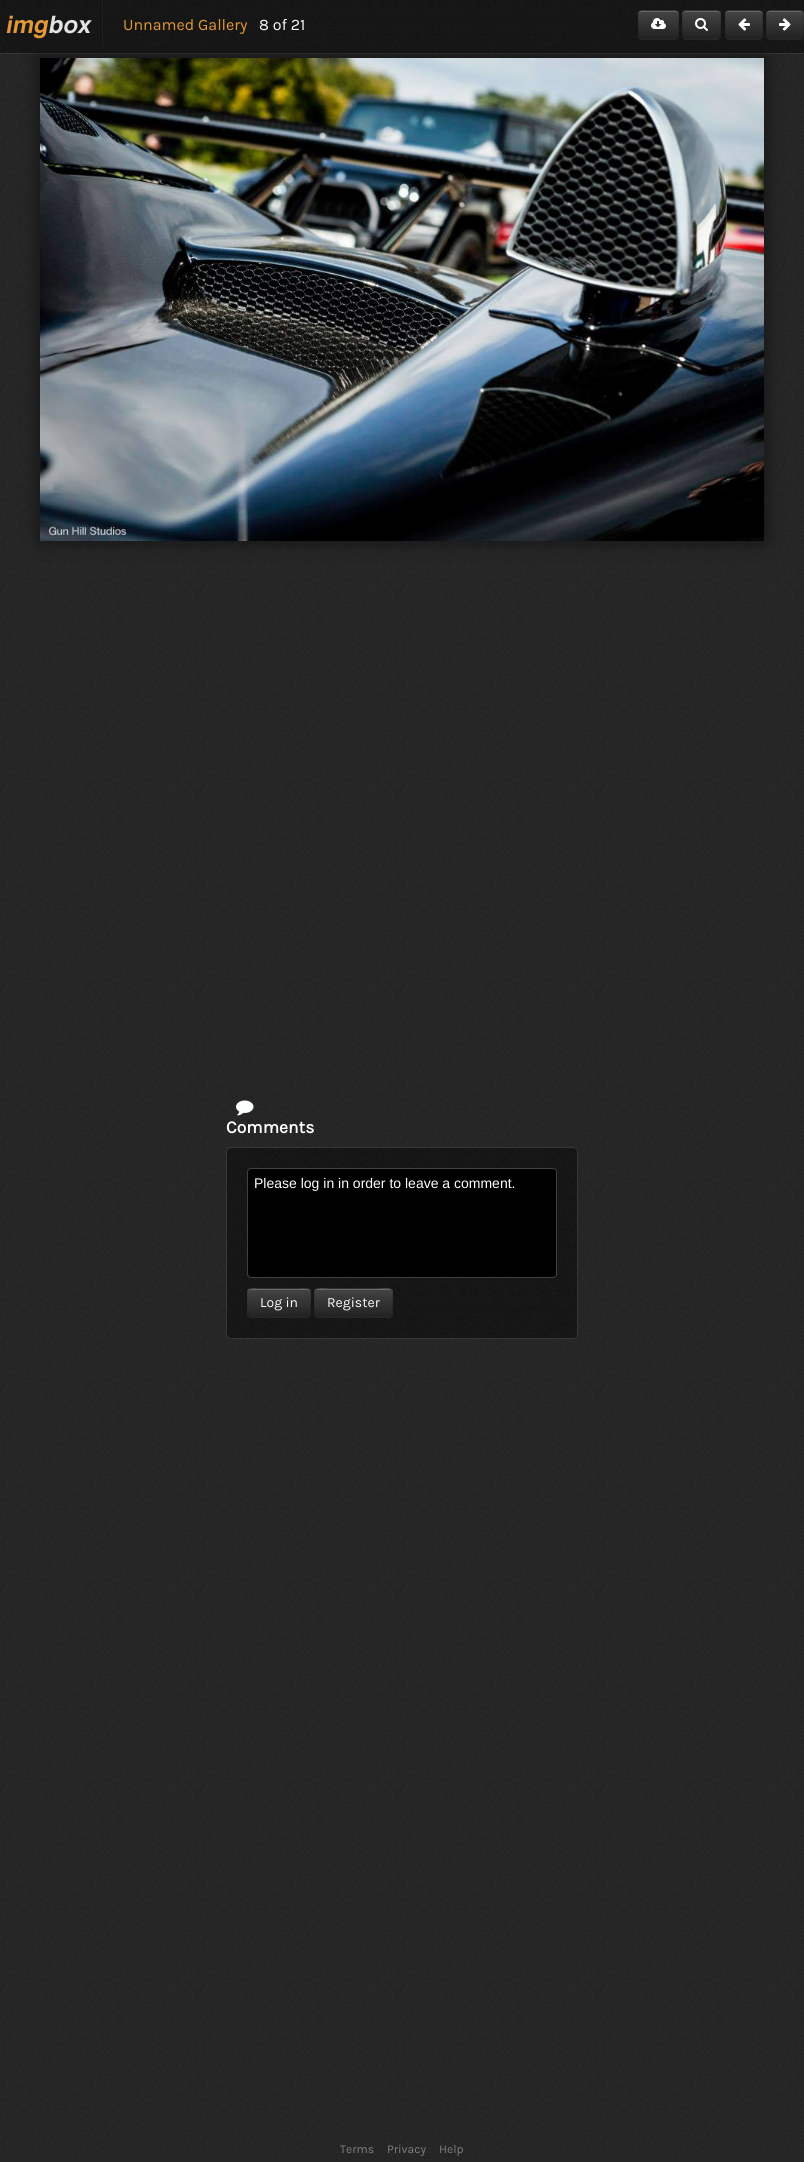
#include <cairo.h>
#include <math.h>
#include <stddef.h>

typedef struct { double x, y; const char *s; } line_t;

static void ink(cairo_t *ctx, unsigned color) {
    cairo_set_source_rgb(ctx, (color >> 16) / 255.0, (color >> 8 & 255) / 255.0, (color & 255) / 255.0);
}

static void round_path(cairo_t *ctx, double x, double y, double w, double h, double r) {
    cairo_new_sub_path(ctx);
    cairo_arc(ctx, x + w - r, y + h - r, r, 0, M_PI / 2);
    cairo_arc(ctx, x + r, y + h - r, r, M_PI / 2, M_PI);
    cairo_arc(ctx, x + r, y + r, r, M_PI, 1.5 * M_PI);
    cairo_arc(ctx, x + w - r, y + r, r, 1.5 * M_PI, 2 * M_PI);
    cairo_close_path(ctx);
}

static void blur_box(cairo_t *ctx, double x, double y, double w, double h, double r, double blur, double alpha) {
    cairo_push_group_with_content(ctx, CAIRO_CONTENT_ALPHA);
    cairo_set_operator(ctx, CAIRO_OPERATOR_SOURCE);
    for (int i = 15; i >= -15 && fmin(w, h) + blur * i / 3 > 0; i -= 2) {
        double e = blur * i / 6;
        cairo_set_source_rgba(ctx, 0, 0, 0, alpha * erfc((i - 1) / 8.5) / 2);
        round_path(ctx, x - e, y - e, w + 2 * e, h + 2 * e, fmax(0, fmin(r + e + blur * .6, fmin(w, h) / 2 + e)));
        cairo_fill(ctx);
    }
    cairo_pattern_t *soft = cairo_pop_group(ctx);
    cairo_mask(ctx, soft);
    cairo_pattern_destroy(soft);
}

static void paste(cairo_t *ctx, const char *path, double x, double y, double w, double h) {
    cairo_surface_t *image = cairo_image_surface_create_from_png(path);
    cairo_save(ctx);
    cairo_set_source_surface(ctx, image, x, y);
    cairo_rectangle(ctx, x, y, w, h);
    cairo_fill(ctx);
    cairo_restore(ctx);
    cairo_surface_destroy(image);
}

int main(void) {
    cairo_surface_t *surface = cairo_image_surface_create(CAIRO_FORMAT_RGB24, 804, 2162);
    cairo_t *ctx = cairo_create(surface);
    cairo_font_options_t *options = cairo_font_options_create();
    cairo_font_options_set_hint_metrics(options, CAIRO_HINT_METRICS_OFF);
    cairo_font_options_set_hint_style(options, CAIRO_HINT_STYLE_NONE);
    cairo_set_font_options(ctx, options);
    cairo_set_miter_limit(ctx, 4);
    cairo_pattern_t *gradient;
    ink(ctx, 0x262626);
    cairo_paint(ctx);
    paste(ctx, "media/1.png", 0, 54, 804, 2107);
    paste(ctx, "media/2.png", 0, 0, 804, 53);
    ink(ctx, 0x373737);
    cairo_rectangle(ctx, 0, 53, 804, 1);
    cairo_fill(ctx);
    paste(ctx, "media/3.png", 6, 15, 86, 24);
    ink(ctx, 0x202020);
    cairo_rectangle(ctx, 102, 0, 1, 53);
    cairo_fill(ctx);
    cairo_select_font_face(ctx, "Karla", CAIRO_FONT_SLANT_NORMAL, CAIRO_FONT_WEIGHT_NORMAL);
    cairo_set_font_size(ctx, 16);
    ink(ctx, 0xE39938);
    cairo_move_to(ctx, 123, 30);
    cairo_show_text(ctx, "Unnamed Gallery");
    ink(ctx, 0xFDFEFF);
    cairo_move_to(ctx, 259, 30);
    cairo_show_text(ctx, "8 of 21");
    ink(ctx, 0x363636);
    round_path(ctx, 638, 10, 41, 30, 4);
    cairo_fill(ctx);
    cairo_save(ctx);
    round_path(ctx, 638, 10, 41, 30, 4);
    cairo_clip(ctx);
    gradient = cairo_pattern_create_linear(659, 11, 659, 39);
    cairo_pattern_add_color_stop_rgba(gradient, 0, 0.267, 0.267, 0.267, 1);
    cairo_pattern_add_color_stop_rgba(gradient, 1, 0.133, 0.133, 0.133, 1);
    cairo_set_source(ctx, gradient);
    cairo_pattern_destroy(gradient);
    cairo_rectangle(ctx, 638, 11, 41, 28);
    cairo_fill(ctx);
    cairo_restore(ctx);
    ink(ctx, 0x696969);
    cairo_new_path(ctx);
    cairo_move_to(ctx, 642, 12);
    cairo_line_to(ctx, 675, 12);
    cairo_curve_to(ctx, 677, 12, 678, 13, 678, 15);
    cairo_curve_to(ctx, 678, 9.5, 674, 11, 669.5, 11);
    cairo_line_to(ctx, 647.5, 11);
    cairo_curve_to(ctx, 643, 11, 639, 9.5, 639, 15);
    cairo_curve_to(ctx, 639, 13, 640, 12, 642, 12);
    cairo_close_path(ctx);
    cairo_fill(ctx);
    cairo_new_path(ctx);
    cairo_move_to(ctx, 677.5, 38.5);
    cairo_curve_to(ctx, 677, 39, 676, 39.5, 675, 39.5);
    cairo_line_to(ctx, 642, 39.5);
    cairo_curve_to(ctx, 641, 39.5, 640, 39, 639.5, 38.5);
    cairo_set_source_rgba(ctx, 0, 0, 0, 0.25);
    cairo_set_line_width(ctx, 1);
    cairo_stroke(ctx);
    cairo_new_path(ctx);
    cairo_move_to(ctx, 639.5, 38.5);
    cairo_curve_to(ctx, 637.5, 36.5, 638.5, 28, 638.5, 25);
    cairo_curve_to(ctx, 638.5, 6, 637, 10.5, 658.5, 10.5);
    cairo_curve_to(ctx, 680, 10.5, 678.5, 6, 678.5, 25);
    cairo_curve_to(ctx, 678.5, 28, 679.5, 36.5, 677.5, 38.5);
    cairo_set_source_rgba(ctx, 0, 0, 0, 0.1);
    cairo_stroke(ctx);
    paste(ctx, "media/4.png", 651, 18, 15, 11);
    ink(ctx, 0x363636);
    round_path(ctx, 682, 10, 39, 30, 4);
    cairo_fill(ctx);
    cairo_save(ctx);
    round_path(ctx, 682, 10, 39, 30, 4);
    cairo_clip(ctx);
    gradient = cairo_pattern_create_linear(702, 11, 702, 39);
    cairo_pattern_add_color_stop_rgba(gradient, 0, 0.267, 0.267, 0.267, 1);
    cairo_pattern_add_color_stop_rgba(gradient, 1, 0.133, 0.133, 0.133, 1);
    cairo_set_source(ctx, gradient);
    cairo_pattern_destroy(gradient);
    cairo_rectangle(ctx, 682, 11, 39, 28);
    cairo_fill(ctx);
    cairo_restore(ctx);
    ink(ctx, 0x696969);
    cairo_new_path(ctx);
    cairo_move_to(ctx, 686, 12);
    cairo_line_to(ctx, 717, 12);
    cairo_curve_to(ctx, 719, 12, 720, 13, 720, 15);
    cairo_curve_to(ctx, 720, 10, 716, 11, 712, 11);
    cairo_line_to(ctx, 691, 11);
    cairo_curve_to(ctx, 687, 11, 683, 10, 683, 15);
    cairo_curve_to(ctx, 683, 13, 684, 12, 686, 12);
    cairo_close_path(ctx);
    cairo_fill(ctx);
    cairo_new_path(ctx);
    cairo_move_to(ctx, 719.5, 38.5);
    cairo_curve_to(ctx, 719, 39, 718, 39.5, 717, 39.5);
    cairo_line_to(ctx, 686, 39.5);
    cairo_curve_to(ctx, 685, 39.5, 684, 39, 683.5, 38.5);
    cairo_set_source_rgba(ctx, 0, 0, 0, 0.25);
    cairo_stroke(ctx);
    cairo_new_path(ctx);
    cairo_move_to(ctx, 683.5, 38.5);
    cairo_curve_to(ctx, 683, 38, 682.5, 37, 682.5, 36);
    cairo_line_to(ctx, 682.5, 14);
    cairo_curve_to(ctx, 682.5, 13, 683, 12, 683.5, 11.5);
    cairo_curve_to(ctx, 684, 11, 685, 10.5, 686, 10.5);
    cairo_line_to(ctx, 717, 10.5);
    cairo_curve_to(ctx, 718, 10.5, 719, 11, 719.5, 11.5);
    cairo_curve_to(ctx, 720, 12, 720.5, 13, 720.5, 14);
    cairo_line_to(ctx, 720.5, 36);
    cairo_curve_to(ctx, 720.5, 37, 720, 38, 719.5, 38.5);
    cairo_set_source_rgba(ctx, 0, 0, 0, 0.1);
    cairo_stroke(ctx);
    paste(ctx, "media/5.png", 695, 18, 13, 13);
    ink(ctx, 0x363636);
    round_path(ctx, 725, 10, 38, 30, 4);
    cairo_fill(ctx);
    cairo_save(ctx);
    round_path(ctx, 725, 10, 38, 30, 4);
    cairo_clip(ctx);
    gradient = cairo_pattern_create_linear(744, 11, 744, 39);
    cairo_pattern_add_color_stop_rgba(gradient, 0, 0.267, 0.267, 0.267, 1);
    cairo_pattern_add_color_stop_rgba(gradient, 1, 0.133, 0.133, 0.133, 1);
    cairo_set_source(ctx, gradient);
    cairo_pattern_destroy(gradient);
    cairo_rectangle(ctx, 725, 11, 38, 28);
    cairo_fill(ctx);
    cairo_restore(ctx);
    ink(ctx, 0x696969);
    cairo_new_path(ctx);
    cairo_move_to(ctx, 729, 12);
    cairo_line_to(ctx, 759, 12);
    cairo_curve_to(ctx, 761, 12, 762, 13, 762, 15);
    cairo_curve_to(ctx, 762, 10, 758, 11, 754, 11);
    cairo_line_to(ctx, 734, 11);
    cairo_curve_to(ctx, 730, 11, 726, 10, 726, 15);
    cairo_curve_to(ctx, 726, 13, 727, 12, 729, 12);
    cairo_close_path(ctx);
    cairo_fill(ctx);
    cairo_new_path(ctx);
    cairo_move_to(ctx, 761.5, 38.5);
    cairo_curve_to(ctx, 761, 39, 760, 39.5, 759, 39.5);
    cairo_line_to(ctx, 729, 39.5);
    cairo_curve_to(ctx, 728, 39.5, 727, 39, 726.5, 38.5);
    cairo_set_source_rgba(ctx, 0, 0, 0, 0.25);
    cairo_stroke(ctx);
    cairo_new_path(ctx);
    cairo_move_to(ctx, 726.5, 38.5);
    cairo_curve_to(ctx, 726, 38, 725.5, 37, 725.5, 36);
    cairo_line_to(ctx, 725.5, 14);
    cairo_curve_to(ctx, 725.5, 13, 726, 12, 726.5, 11.5);
    cairo_curve_to(ctx, 727, 11, 728, 10.5, 729, 10.5);
    cairo_line_to(ctx, 759, 10.5);
    cairo_curve_to(ctx, 760, 10.5, 761, 11, 761.5, 11.5);
    cairo_curve_to(ctx, 762, 12, 762.5, 13, 762.5, 14);
    cairo_line_to(ctx, 762.5, 36);
    cairo_curve_to(ctx, 762.5, 37, 762, 38, 761.5, 38.5);
    cairo_set_source_rgba(ctx, 0, 0, 0, 0.1);
    cairo_stroke(ctx);
    paste(ctx, "media/6.png", 738, 18, 12, 13);
    ink(ctx, 0x363636);
    round_path(ctx, 766, 10, 38, 30, 4);
    cairo_fill(ctx);
    cairo_save(ctx);
    round_path(ctx, 766, 10, 38, 30, 4);
    cairo_clip(ctx);
    gradient = cairo_pattern_create_linear(785, 11, 785, 39);
    cairo_pattern_add_color_stop_rgba(gradient, 0, 0.267, 0.267, 0.267, 1);
    cairo_pattern_add_color_stop_rgba(gradient, 1, 0.133, 0.133, 0.133, 1);
    cairo_set_source(ctx, gradient);
    cairo_pattern_destroy(gradient);
    cairo_rectangle(ctx, 766, 11, 38, 28);
    cairo_fill(ctx);
    cairo_restore(ctx);
    ink(ctx, 0x696969);
    cairo_new_path(ctx);
    cairo_move_to(ctx, 770, 12);
    cairo_line_to(ctx, 800, 12);
    cairo_curve_to(ctx, 802, 12, 803, 13, 803, 15);
    cairo_curve_to(ctx, 803, 10, 799, 11, 795, 11);
    cairo_line_to(ctx, 775, 11);
    cairo_curve_to(ctx, 771, 11, 767, 10, 767, 15);
    cairo_curve_to(ctx, 767, 13, 768, 12, 770, 12);
    cairo_close_path(ctx);
    cairo_fill(ctx);
    cairo_new_path(ctx);
    cairo_move_to(ctx, 802.5, 38.5);
    cairo_curve_to(ctx, 802, 39, 801, 39.5, 800, 39.5);
    cairo_line_to(ctx, 770, 39.5);
    cairo_curve_to(ctx, 769, 39.5, 768, 39, 767.5, 38.5);
    cairo_set_source_rgba(ctx, 0, 0, 0, 0.25);
    cairo_stroke(ctx);
    cairo_new_path(ctx);
    cairo_move_to(ctx, 767.5, 38.5);
    cairo_curve_to(ctx, 767, 38, 766.5, 37, 766.5, 36);
    cairo_line_to(ctx, 766.5, 14);
    cairo_curve_to(ctx, 766.5, 13, 767, 12, 767.5, 11.5);
    cairo_curve_to(ctx, 768, 11, 769, 10.5, 770, 10.5);
    cairo_line_to(ctx, 800, 10.5);
    cairo_curve_to(ctx, 801, 10.5, 802, 11, 802.5, 11.5);
    cairo_curve_to(ctx, 803, 12, 803.5, 13, 803.5, 14);
    cairo_line_to(ctx, 803.5, 36);
    cairo_curve_to(ctx, 803.5, 37, 803, 38, 802.5, 38.5);
    cairo_set_source_rgba(ctx, 0, 0, 0, 0.1);
    cairo_stroke(ctx);
    paste(ctx, "media/7.png", 779, 18, 12, 13);
    ink(ctx, 0x111111);
    blur_box(ctx, 40, 58, 724, 483, 0, 10, 1);
    paste(ctx, "media/8.png", 40, 58, 724, 483);
    paste(ctx, "media/9.png", 236, 1100, 18, 16);
    cairo_select_font_face(ctx, "Karla", CAIRO_FONT_SLANT_NORMAL, CAIRO_FONT_WEIGHT_BOLD);
    cairo_set_font_size(ctx, 17.5);
    ink(ctx, 0xFDFEFF);
    cairo_move_to(ctx, 226, 1133);
    cairo_show_text(ctx, "Comments");
    paste(ctx, "media/10.png", 226, 1147, 352, 192);
    round_path(ctx, 226.5, 1147.5, 351, 191, 4.5);
    ink(ctx, 0x373737);
    cairo_stroke(ctx);
    ink(ctx, 0x000000);
    round_path(ctx, 247.5, 1168.5, 309, 109, 3.5);
    cairo_fill_preserve(ctx);
    ink(ctx, 0x424242);
    cairo_stroke(ctx);
    cairo_select_font_face(ctx, "Liberation Sans", CAIRO_FONT_SLANT_NORMAL, CAIRO_FONT_WEIGHT_NORMAL);
    cairo_set_font_size(ctx, 14);
    ink(ctx, 0xFDFEFF);
    cairo_move_to(ctx, 254, 1188);
    cairo_show_text(ctx, "Please log in in order to leave a comment.");
    ink(ctx, 0x363636);
    round_path(ctx, 247, 1288, 64, 30, 4);
    cairo_fill(ctx);
    cairo_save(ctx);
    round_path(ctx, 247, 1288, 64, 30, 4);
    cairo_clip(ctx);
    gradient = cairo_pattern_create_linear(279, 1289, 279, 1317);
    cairo_pattern_add_color_stop_rgba(gradient, 0, 0.267, 0.267, 0.267, 1);
    cairo_pattern_add_color_stop_rgba(gradient, 1, 0.133, 0.133, 0.133, 1);
    cairo_set_source(ctx, gradient);
    cairo_pattern_destroy(gradient);
    cairo_rectangle(ctx, 247, 1289, 64, 28);
    cairo_fill(ctx);
    cairo_restore(ctx);
    ink(ctx, 0x696969);
    cairo_new_path(ctx);
    cairo_move_to(ctx, 251, 1290);
    cairo_line_to(ctx, 307, 1290);
    cairo_curve_to(ctx, 309, 1290, 310, 1291, 310, 1293);
    cairo_curve_to(ctx, 310, 1287, 302, 1289, 298, 1289);
    cairo_line_to(ctx, 260, 1289);
    cairo_curve_to(ctx, 256, 1289, 248, 1287, 248, 1293);
    cairo_curve_to(ctx, 248, 1291, 249, 1290, 251, 1290);
    cairo_close_path(ctx);
    cairo_fill(ctx);
    cairo_new_path(ctx);
    cairo_move_to(ctx, 309.5, 1316.5);
    cairo_line_to(ctx, 307.5, 1317.5);
    cairo_line_to(ctx, 250.5, 1317.5);
    cairo_line_to(ctx, 248.5, 1316.5);
    cairo_set_source_rgba(ctx, 0, 0, 0, 0.25);
    cairo_stroke(ctx);
    cairo_new_path(ctx);
    cairo_move_to(ctx, 248.5, 1316.5);
    cairo_curve_to(ctx, 246.5, 1314.5, 247.5, 1306, 247.5, 1303);
    cairo_curve_to(ctx, 247.5, 1287.5, 245, 1288.5, 260.5, 1288.5);
    cairo_line_to(ctx, 297.5, 1288.5);
    cairo_curve_to(ctx, 313, 1288.5, 310.5, 1287.5, 310.5, 1303);
    cairo_curve_to(ctx, 310.5, 1306, 311.5, 1314.5, 309.5, 1316.5);
    cairo_set_source_rgba(ctx, 0, 0, 0, 0.1);
    cairo_stroke(ctx);
    cairo_select_font_face(ctx, "Karla", CAIRO_FONT_SLANT_NORMAL, CAIRO_FONT_WEIGHT_NORMAL);
    ink(ctx, 0xFDFEFF);
    cairo_move_to(ctx, 260, 1307);
    cairo_show_text(ctx, "Log in");
    ink(ctx, 0x363636);
    round_path(ctx, 314, 1288, 79, 30, 4);
    cairo_fill(ctx);
    cairo_save(ctx);
    round_path(ctx, 314, 1288, 79, 30, 4);
    cairo_clip(ctx);
    gradient = cairo_pattern_create_linear(354, 1289, 354, 1317);
    cairo_pattern_add_color_stop_rgba(gradient, 0, 0.267, 0.267, 0.267, 1);
    cairo_pattern_add_color_stop_rgba(gradient, 1, 0.133, 0.133, 0.133, 1);
    cairo_set_source(ctx, gradient);
    cairo_pattern_destroy(gradient);
    cairo_rectangle(ctx, 314, 1289, 79, 28);
    cairo_fill(ctx);
    cairo_restore(ctx);
    cairo_set_source_rgba(ctx, 1, 1, 1, 0.2);
    cairo_new_path(ctx);
    cairo_move_to(ctx, 318, 1290);
    cairo_line_to(ctx, 389, 1290);
    cairo_curve_to(ctx, 391, 1290, 392, 1291, 392, 1293);
    cairo_curve_to(ctx, 392, 1286, 381, 1289, 377, 1289);
    cairo_line_to(ctx, 330, 1289);
    cairo_curve_to(ctx, 326, 1289, 315, 1286, 315, 1293);
    cairo_curve_to(ctx, 315, 1291, 316, 1290, 318, 1290);
    cairo_close_path(ctx);
    cairo_fill(ctx);
    cairo_new_path(ctx);
    cairo_move_to(ctx, 391.5, 1316.5);
    cairo_curve_to(ctx, 391, 1317, 390, 1317.5, 389, 1317.5);
    cairo_line_to(ctx, 318, 1317.5);
    cairo_curve_to(ctx, 317, 1317.5, 316, 1317, 315.5, 1316.5);
    cairo_set_source_rgba(ctx, 0, 0, 0, 0.25);
    cairo_stroke(ctx);
    cairo_new_path(ctx);
    cairo_move_to(ctx, 315.5, 1316.5);
    cairo_curve_to(ctx, 313.5, 1314.5, 314.5, 1306, 314.5, 1303);
    cairo_curve_to(ctx, 314.5, 1286, 312, 1288.5, 330, 1288.5);
    cairo_line_to(ctx, 377, 1288.5);
    cairo_curve_to(ctx, 395, 1288.5, 392.5, 1286, 392.5, 1303);
    cairo_curve_to(ctx, 392.5, 1306, 393.5, 1314.5, 391.5, 1316.5);
    cairo_set_source_rgba(ctx, 0, 0, 0, 0.1);
    cairo_stroke(ctx);
    ink(ctx, 0xFDFEFF);
    cairo_move_to(ctx, 327, 1307);
    cairo_show_text(ctx, "Register");
    cairo_set_font_size(ctx, 12);
    ink(ctx, 0x808080);
    {
        static const line_t items[] = {
            {340, 2153, "Terms"},
            {387, 2153, "Privacy"},
            {439, 2153, "Help"},
        };
        for (size_t i = 0; i < sizeof items / sizeof *items; i++) {
            cairo_move_to(ctx, items[i].x, items[i].y);
            cairo_show_text(ctx, items[i].s);
        }
    }
    cairo_surface_write_to_png(surface, "image.png");
    cairo_font_options_destroy(options);
    cairo_destroy(ctx);
    cairo_surface_destroy(surface);
    return 0;
}
